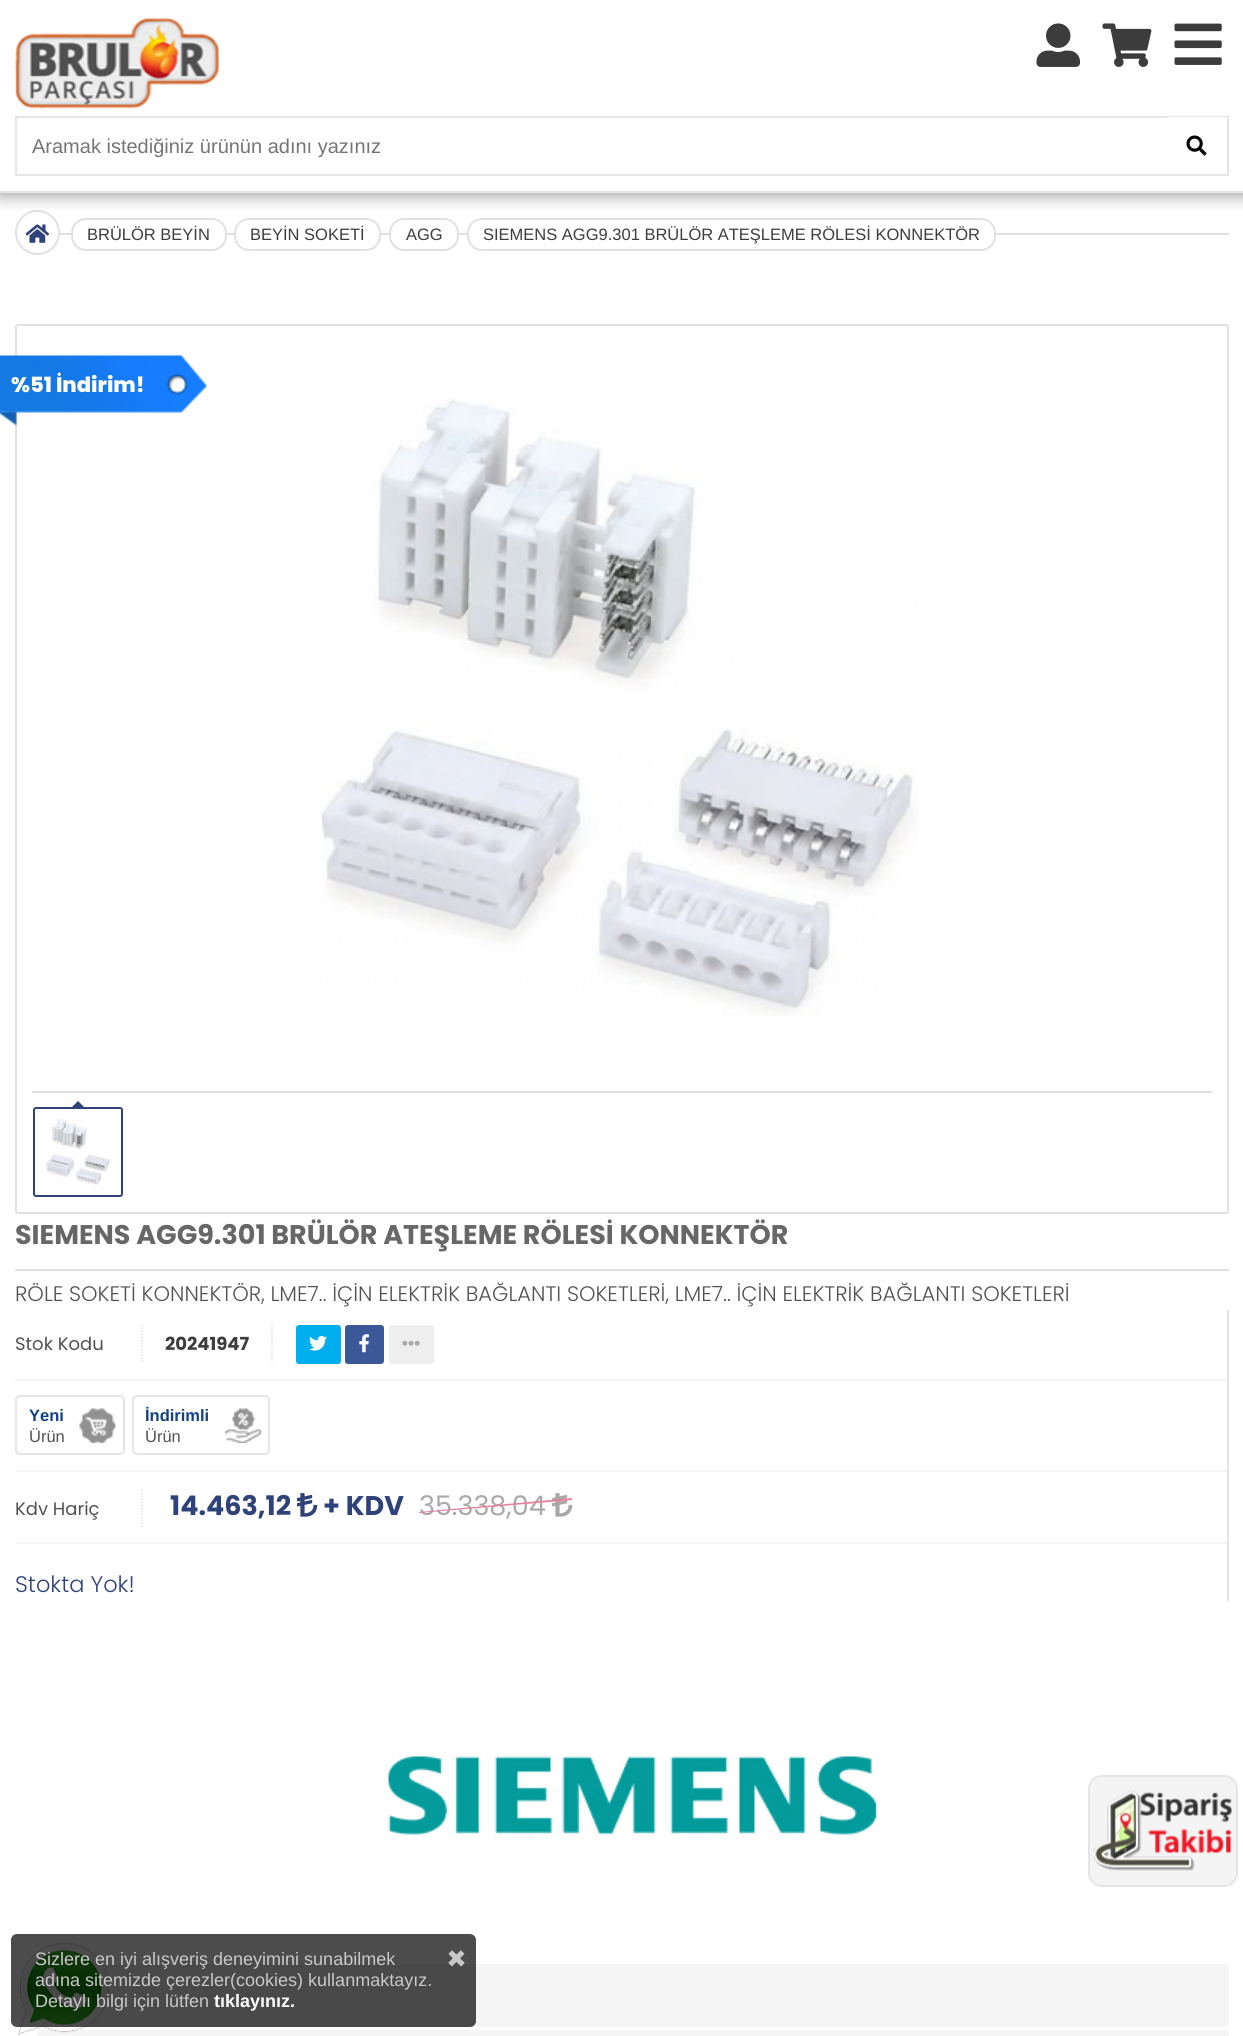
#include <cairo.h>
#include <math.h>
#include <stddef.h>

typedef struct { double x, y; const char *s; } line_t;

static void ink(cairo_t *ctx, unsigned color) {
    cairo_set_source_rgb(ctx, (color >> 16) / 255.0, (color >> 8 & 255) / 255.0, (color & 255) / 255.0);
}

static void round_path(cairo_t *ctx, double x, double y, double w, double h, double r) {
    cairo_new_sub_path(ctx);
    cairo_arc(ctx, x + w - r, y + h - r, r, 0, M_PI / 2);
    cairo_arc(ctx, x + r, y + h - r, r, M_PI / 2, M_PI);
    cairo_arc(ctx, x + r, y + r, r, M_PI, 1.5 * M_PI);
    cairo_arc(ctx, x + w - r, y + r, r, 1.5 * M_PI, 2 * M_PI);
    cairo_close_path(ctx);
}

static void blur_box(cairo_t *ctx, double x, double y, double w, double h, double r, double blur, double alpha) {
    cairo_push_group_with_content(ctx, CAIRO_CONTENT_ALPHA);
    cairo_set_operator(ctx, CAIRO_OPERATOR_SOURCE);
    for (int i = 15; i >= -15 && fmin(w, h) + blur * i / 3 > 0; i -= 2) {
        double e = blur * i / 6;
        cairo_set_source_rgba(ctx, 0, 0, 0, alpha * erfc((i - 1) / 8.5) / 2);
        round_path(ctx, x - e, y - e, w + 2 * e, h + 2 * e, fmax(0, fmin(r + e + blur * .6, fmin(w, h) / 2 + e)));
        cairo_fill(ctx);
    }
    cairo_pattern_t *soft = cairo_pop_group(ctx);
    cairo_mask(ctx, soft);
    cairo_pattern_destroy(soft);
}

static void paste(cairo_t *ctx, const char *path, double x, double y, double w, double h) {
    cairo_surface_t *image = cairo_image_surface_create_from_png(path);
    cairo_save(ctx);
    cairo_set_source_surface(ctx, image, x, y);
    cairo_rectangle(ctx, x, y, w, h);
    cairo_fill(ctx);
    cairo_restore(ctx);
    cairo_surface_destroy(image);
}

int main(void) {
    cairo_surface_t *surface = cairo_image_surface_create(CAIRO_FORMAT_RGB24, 1243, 2036);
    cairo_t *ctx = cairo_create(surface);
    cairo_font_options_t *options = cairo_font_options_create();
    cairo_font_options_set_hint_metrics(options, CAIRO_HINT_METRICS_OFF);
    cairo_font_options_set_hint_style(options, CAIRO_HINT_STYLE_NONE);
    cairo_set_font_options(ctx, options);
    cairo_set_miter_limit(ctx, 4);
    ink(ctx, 0xFFFFFF);
    cairo_paint(ctx);
    ink(ctx, 0xE1E1E1);
    cairo_rectangle(ctx, 15, 233, 1214, 2);
    cairo_fill(ctx);
    ink(ctx, 0xFFFFFF);
    cairo_arc(ctx, 37.5, 232.5, 21.5, 0, 2 * M_PI);
    cairo_fill_preserve(ctx);
    ink(ctx, 0xE1E1E1);
    cairo_stroke(ctx);
    ink(ctx, 0xFFFFFF);
    round_path(ctx, 72, 219, 154, 31, 14);
    cairo_fill_preserve(ctx);
    ink(ctx, 0xE1E1E1);
    cairo_stroke(ctx);
    ink(ctx, 0xFFFFFF);
    round_path(ctx, 235, 219, 145, 31, 14);
    cairo_fill_preserve(ctx);
    ink(ctx, 0xE1E1E1);
    cairo_stroke(ctx);
    ink(ctx, 0xFFFFFF);
    round_path(ctx, 390, 219, 68, 31, 14);
    cairo_fill_preserve(ctx);
    ink(ctx, 0xE1E1E1);
    cairo_stroke(ctx);
    ink(ctx, 0xFFFFFF);
    round_path(ctx, 468, 219, 527, 31, 14);
    cairo_fill_preserve(ctx);
    ink(ctx, 0xE1E1E1);
    cairo_stroke(ctx);
    cairo_save(ctx);
    cairo_rectangle(ctx, 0, 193, 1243, 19);
    cairo_clip(ctx);
    ink(ctx, 0xAAAAAA);
    blur_box(ctx, -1, -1, 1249, 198, 0, 7.5, 1);
    cairo_restore(ctx);
    ink(ctx, 0xE5E5E5);
    cairo_rectangle(ctx, 0, 191, 1243, 2);
    cairo_fill(ctx);
    paste(ctx, "media/1.png", 15, 18, 204, 91);
    paste(ctx, "media/2.png", 1036, 23, 44, 44);
    paste(ctx, "media/3.png", 1102, 23, 50, 44);
    paste(ctx, "media/4.png", 1174, 23, 48, 42);
    cairo_rectangle(ctx, 16, 117, 1212, 58);
    cairo_stroke(ctx);
    cairo_select_font_face(ctx, "Liberation Sans", CAIRO_FONT_SLANT_NORMAL, CAIRO_FONT_WEIGHT_NORMAL);
    cairo_set_font_size(ctx, 20);
    ink(ctx, 0x757575);
    cairo_move_to(ctx, 32, 153);
    cairo_show_text(ctx, "Aramak istediğiniz ürünün adını yazınız");
    ink(ctx, 0xFFFFFF);
    cairo_rectangle(ctx, 1167, 117, 60, 1);
    cairo_fill(ctx);
    paste(ctx, "media/5.png", 1186, 135, 21, 21);
    paste(ctx, "media/6.png", 25, 224, 25, 19);
    cairo_set_font_size(ctx, 16.5);
    ink(ctx, 0x3D3D3D);
    {
        static const line_t items[] = {
            {87, 240, "BRÜLÖR BEYİN"},
            {250, 240, "BEYİN SOKETİ"},
            {406, 240, "AGG"},
            {483, 240, "SIEMENS AGG9.301 BRÜLÖR ATEŞLEME RÖLESİ KONNEKTÖR"},
        };
        for (size_t i = 0; i < sizeof items / sizeof *items; i++) {
            cairo_move_to(ctx, items[i].x, items[i].y);
            cairo_show_text(ctx, items[i].s);
        }
    }
    round_path(ctx, 16, 325, 1212, 888, 2);
    ink(ctx, 0xE1E1E1);
    cairo_stroke(ctx);
    paste(ctx, "media/7.png", 0, 355, 207, 71);
    cairo_select_font_face(ctx, "Poppins ExtraBold", CAIRO_FONT_SLANT_NORMAL, CAIRO_FONT_WEIGHT_NORMAL);
    cairo_set_font_size(ctx, 21);
    ink(ctx, 0xFFFFFF);
    cairo_move_to(ctx, 11, 392);
    cairo_show_text(ctx, "%51 İndirim!");
    ink(ctx, 0xE1E1E1);
    cairo_rectangle(ctx, 32, 1091, 1180, 2);
    cairo_fill(ctx);
    paste(ctx, "media/8.png", 320, 399, 599, 618);
    round_path(ctx, 34, 1108, 88, 88, 2);
    ink(ctx, 0x30427A);
    cairo_stroke(ctx);
    cairo_new_path(ctx);
    cairo_move_to(ctx, 85.5, 1108.5);
    cairo_line_to(ctx, 70.5, 1108.5);
    cairo_line_to(ctx, 78, 1101);
    cairo_close_path(ctx);
    cairo_fill(ctx);
    paste(ctx, "media/9.png", 45, 1118, 66, 67);
    ink(ctx, 0xE1E1E1);
    cairo_rectangle(ctx, 15, 1269, 1214, 2);
    cairo_fill(ctx);
    cairo_select_font_face(ctx, "Poppins", CAIRO_FONT_SLANT_NORMAL, CAIRO_FONT_WEIGHT_BOLD);
    cairo_set_font_size(ctx, 27);
    ink(ctx, 0x676767);
    cairo_move_to(ctx, 15, 1244);
    cairo_show_text(ctx, "SIEMENS AGG9.301 BRÜLÖR ATEŞLEME RÖLESİ KONNEKTÖR");
    cairo_select_font_face(ctx, "Poppins Light", CAIRO_FONT_SLANT_NORMAL, CAIRO_FONT_WEIGHT_NORMAL);
    cairo_set_font_size(ctx, 21);
    ink(ctx, 0x525252);
    cairo_move_to(ctx, 15, 1301);
    cairo_show_text(ctx, "RÖLE SOKETİ KONNEKTÖR, LME7.. İÇİN ELEKTRİK BAĞLANTI SOKETLERİ, LME7.. İÇİN ELEKTRİK BAĞLANTI SOKETLERİ");
    ink(ctx, 0xE5E5E5);
    cairo_rectangle(ctx, 1227, 1310, 2, 291);
    cairo_fill(ctx);
    ink(ctx, 0xF5F5F5);
    cairo_rectangle(ctx, 15, 1379, 1212, 2);
    cairo_fill(ctx);
    cairo_new_path(ctx);
    cairo_move_to(ctx, 272, 1324.5);
    cairo_line_to(ctx, 272, 1362);
    ink(ctx, 0xE1E1E1);
    cairo_set_line_width(ctx, 1.5);
    cairo_set_dash(ctx, (double[]){1.5, 1.5}, 2, 0);
    cairo_stroke(ctx);
    cairo_new_path(ctx);
    cairo_move_to(ctx, 142, 1324.5);
    cairo_line_to(ctx, 142, 1362);
    cairo_stroke(ctx);
    cairo_select_font_face(ctx, "Poppins", CAIRO_FONT_SLANT_NORMAL, CAIRO_FONT_WEIGHT_NORMAL);
    cairo_set_font_size(ctx, 18);
    ink(ctx, 0x525252);
    cairo_move_to(ctx, 15, 1350);
    cairo_show_text(ctx, "Stok Kodu");
    cairo_select_font_face(ctx, "Poppins", CAIRO_FONT_SLANT_NORMAL, CAIRO_FONT_WEIGHT_BOLD);
    ink(ctx, 0x3D3D3D);
    cairo_move_to(ctx, 165, 1350);
    cairo_show_text(ctx, "20241947");
    ink(ctx, 0x00AEEF);
    round_path(ctx, 296, 1325, 45, 39, 3);
    cairo_fill(ctx);
    paste(ctx, "media/10.png", 309, 1335, 18, 16);
    ink(ctx, 0x3B5998);
    round_path(ctx, 345, 1325, 39, 39, 3);
    cairo_fill(ctx);
    paste(ctx, "media/11.png", 359, 1334, 10, 19);
    ink(ctx, 0xEEEEEE);
    round_path(ctx, 389, 1325, 45, 39, 3);
    cairo_fill(ctx);
    paste(ctx, "media/12.png", 402, 1340, 18, 6);
    ink(ctx, 0xF5F5F5);
    cairo_rectangle(ctx, 15, 1470, 1212, 2);
    cairo_fill(ctx);
    paste(ctx, "media/13.png", 79, 1408, 37, 35);
    round_path(ctx, 16, 1396, 108, 58, 4);
    ink(ctx, 0xE5E5E5);
    cairo_set_line_width(ctx, 2);
    cairo_set_dash(ctx, NULL, 0, 0);
    cairo_stroke(ctx);
    cairo_select_font_face(ctx, "Liberation Sans", CAIRO_FONT_SLANT_NORMAL, CAIRO_FONT_WEIGHT_BOLD);
    cairo_set_font_size(ctx, 16.5);
    ink(ctx, 0x124283);
    cairo_move_to(ctx, 29, 1421);
    cairo_show_text(ctx, "Yeni");
    cairo_select_font_face(ctx, "Liberation Sans", CAIRO_FONT_SLANT_NORMAL, CAIRO_FONT_WEIGHT_NORMAL);
    ink(ctx, 0x525252);
    cairo_move_to(ctx, 29, 1442);
    cairo_show_text(ctx, "Ürün");
    paste(ctx, "media/14.png", 225, 1408, 37, 35);
    round_path(ctx, 133, 1396, 136, 58, 4);
    ink(ctx, 0xE5E5E5);
    cairo_stroke(ctx);
    cairo_select_font_face(ctx, "Liberation Sans", CAIRO_FONT_SLANT_NORMAL, CAIRO_FONT_WEIGHT_BOLD);
    ink(ctx, 0x124283);
    cairo_move_to(ctx, 145, 1421);
    cairo_show_text(ctx, "İndirimli");
    cairo_select_font_face(ctx, "Liberation Sans", CAIRO_FONT_SLANT_NORMAL, CAIRO_FONT_WEIGHT_NORMAL);
    ink(ctx, 0x525252);
    cairo_move_to(ctx, 145, 1442);
    cairo_show_text(ctx, "Ürün");
    ink(ctx, 0xF5F5F5);
    cairo_rectangle(ctx, 15, 1542, 1212, 2);
    cairo_fill(ctx);
    cairo_new_path(ctx);
    cairo_move_to(ctx, 142, 1489.5);
    cairo_line_to(ctx, 142, 1527);
    ink(ctx, 0xE1E1E1);
    cairo_set_line_width(ctx, 1.5);
    cairo_set_dash(ctx, (double[]){1.5, 1.5}, 2, 0);
    cairo_stroke(ctx);
    cairo_select_font_face(ctx, "Poppins", CAIRO_FONT_SLANT_NORMAL, CAIRO_FONT_WEIGHT_NORMAL);
    cairo_set_font_size(ctx, 18);
    ink(ctx, 0x525252);
    cairo_move_to(ctx, 15, 1515);
    cairo_show_text(ctx, "Kdv Hariç");
    cairo_select_font_face(ctx, "Poppins", CAIRO_FONT_SLANT_NORMAL, CAIRO_FONT_WEIGHT_BOLD);
    cairo_set_font_size(ctx, 27);
    ink(ctx, 0x30427A);
    cairo_move_to(ctx, 170, 1515);
    cairo_show_text(ctx, "14.463,12");
    paste(ctx, "media/15.png", 297, 1493, 21, 24);
    cairo_move_to(ctx, 323, 1515);
    cairo_show_text(ctx, "+ KDV");
    cairo_select_font_face(ctx, "Poppins", CAIRO_FONT_SLANT_NORMAL, CAIRO_FONT_WEIGHT_NORMAL);
    ink(ctx, 0xA9A9A9);
    cairo_move_to(ctx, 419, 1515);
    cairo_show_text(ctx, "35.338,04");
    paste(ctx, "media/16.png", 552, 1493, 21, 24);
    ink(ctx, 0xE5809D);
    cairo_new_path(ctx);
    cairo_move_to(ctx, 419, 1512);
    cairo_line_to(ctx, 572, 1498);
    cairo_line_to(ctx, 572, 1500);
    cairo_line_to(ctx, 419, 1513);
    cairo_close_path(ctx);
    cairo_fill(ctx);
    cairo_select_font_face(ctx, "Poppins Light", CAIRO_FONT_SLANT_NORMAL, CAIRO_FONT_WEIGHT_NORMAL);
    cairo_set_font_size(ctx, 22.5);
    ink(ctx, 0x30427A);
    cairo_move_to(ctx, 15, 1592);
    cairo_show_text(ctx, "Stokta Yok!");
    paste(ctx, "media/17.png", 388, 1756, 489, 79);
    ink(ctx, 0xF5F5F5);
    round_path(ctx, 38, 1964, 1191, 63, 3);
    cairo_fill(ctx);
    round_path(ctx, 38, 2030, 1191, 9, 3);
    cairo_fill(ctx);
    ink(ctx, 0xF4F4F4);
    round_path(ctx, 1089, 1776, 148, 110, 13);
    cairo_fill_preserve(ctx);
    ink(ctx, 0xE5E5E5);
    cairo_set_line_width(ctx, 2);
    cairo_set_dash(ctx, NULL, 0, 0);
    cairo_stroke(ctx);
    paste(ctx, "media/18.png", 1093, 1790, 139, 81);
    paste(ctx, "media/19.png", 18, 1942, 91, 93);
    cairo_set_source_rgba(ctx, 0, 0, 0, 0.7);
    round_path(ctx, 11, 1934, 465, 93, 6);
    cairo_fill(ctx);
    cairo_select_font_face(ctx, "Liberation Sans", CAIRO_FONT_SLANT_NORMAL, CAIRO_FONT_WEIGHT_NORMAL);
    cairo_set_font_size(ctx, 18);
    ink(ctx, 0xC7C8C7);
    {
        static const line_t items[] = {
            {35, 1965, "Sizlere en iyi alışveriş deneyimini sunabilmek"},
            {35, 1986, "adına sitemizde çerezler(cookies) kullanmaktayız."},
            {35, 2007, "Detaylı bilgi için lütfen"},
        };
        for (size_t i = 0; i < sizeof items / sizeof *items; i++) {
            cairo_move_to(ctx, items[i].x, items[i].y);
            cairo_show_text(ctx, items[i].s);
        }
    }
    cairo_select_font_face(ctx, "Liberation Sans", CAIRO_FONT_SLANT_NORMAL, CAIRO_FONT_WEIGHT_BOLD);
    ink(ctx, 0xFFFFFF);
    cairo_move_to(ctx, 214, 2007);
    cairo_show_text(ctx, "tıklayınız.");
    cairo_select_font_face(ctx, "Poppins", CAIRO_FONT_SLANT_NORMAL, CAIRO_FONT_WEIGHT_BOLD);
    cairo_set_font_size(ctx, 33);
    ink(ctx, 0xC7C8C7);
    cairo_move_to(ctx, 446, 1970);
    cairo_show_text(ctx, "×");
    cairo_surface_write_to_png(surface, "image.png");
    cairo_font_options_destroy(options);
    cairo_destroy(ctx);
    cairo_surface_destroy(surface);
    return 0;
}
